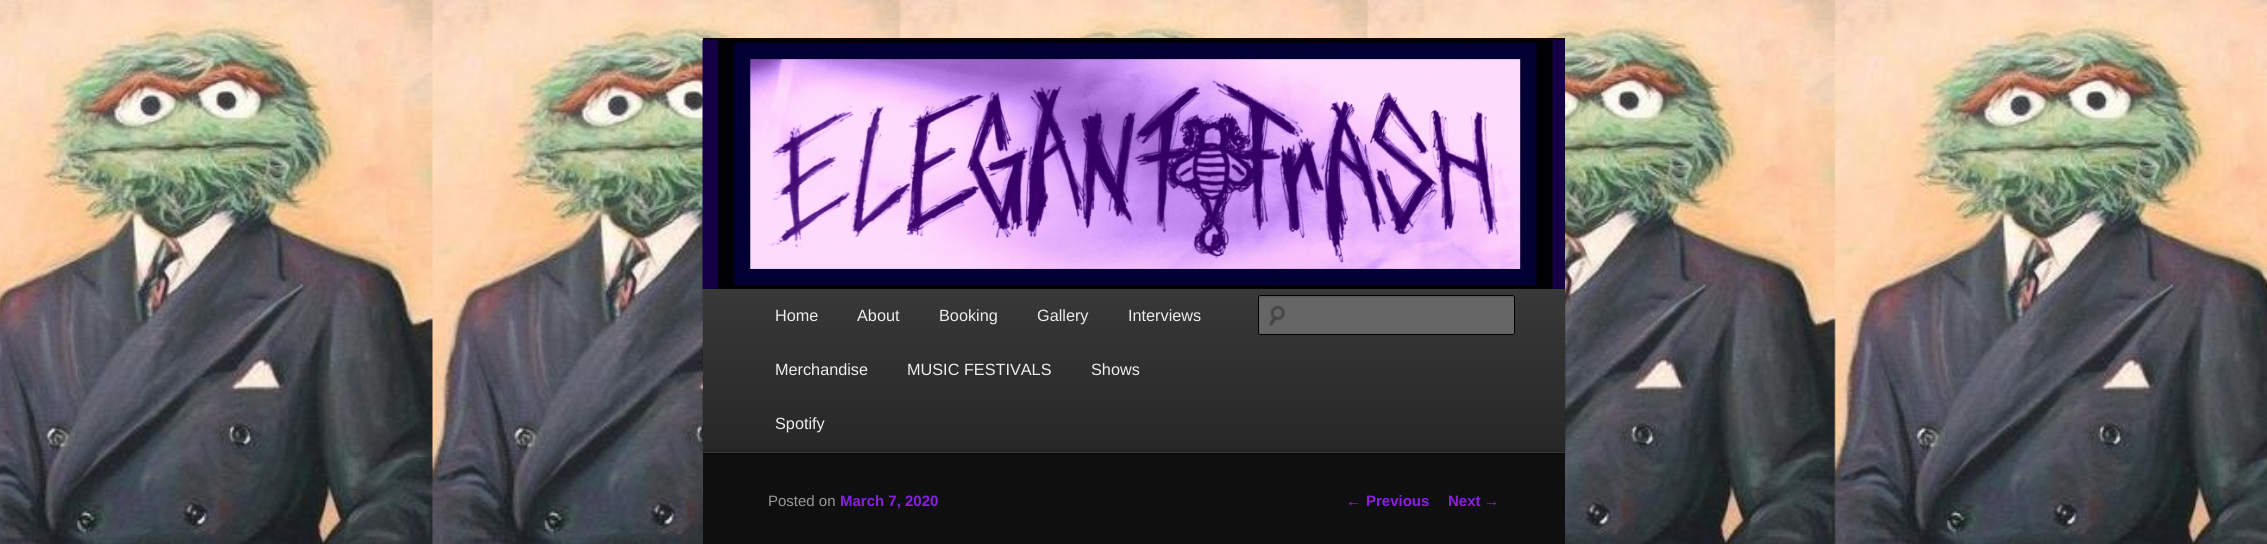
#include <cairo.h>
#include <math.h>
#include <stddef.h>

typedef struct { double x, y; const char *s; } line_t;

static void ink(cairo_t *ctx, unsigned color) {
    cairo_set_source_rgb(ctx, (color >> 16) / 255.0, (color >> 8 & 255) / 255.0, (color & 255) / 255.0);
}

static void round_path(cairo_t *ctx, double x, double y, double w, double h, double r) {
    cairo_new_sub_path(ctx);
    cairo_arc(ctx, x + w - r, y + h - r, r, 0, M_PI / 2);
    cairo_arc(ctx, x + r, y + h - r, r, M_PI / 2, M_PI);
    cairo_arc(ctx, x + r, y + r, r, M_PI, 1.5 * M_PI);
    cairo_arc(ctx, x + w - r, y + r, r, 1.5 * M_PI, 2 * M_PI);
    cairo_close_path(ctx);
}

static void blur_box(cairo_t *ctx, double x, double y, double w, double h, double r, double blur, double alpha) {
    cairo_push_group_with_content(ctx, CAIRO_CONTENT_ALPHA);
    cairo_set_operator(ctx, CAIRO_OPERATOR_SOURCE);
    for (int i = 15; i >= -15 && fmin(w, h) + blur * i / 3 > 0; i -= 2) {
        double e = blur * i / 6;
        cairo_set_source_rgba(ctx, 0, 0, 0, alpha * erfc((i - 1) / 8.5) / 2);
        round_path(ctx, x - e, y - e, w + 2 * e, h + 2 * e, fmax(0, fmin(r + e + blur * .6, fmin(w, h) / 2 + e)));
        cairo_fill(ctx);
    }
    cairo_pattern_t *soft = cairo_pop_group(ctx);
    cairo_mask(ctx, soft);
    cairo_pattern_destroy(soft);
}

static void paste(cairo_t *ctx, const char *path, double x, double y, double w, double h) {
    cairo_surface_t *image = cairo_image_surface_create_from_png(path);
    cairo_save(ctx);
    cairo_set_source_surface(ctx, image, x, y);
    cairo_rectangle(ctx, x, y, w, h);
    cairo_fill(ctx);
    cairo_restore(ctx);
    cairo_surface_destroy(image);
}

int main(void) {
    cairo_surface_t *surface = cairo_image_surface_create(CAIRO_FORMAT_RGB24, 2267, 544);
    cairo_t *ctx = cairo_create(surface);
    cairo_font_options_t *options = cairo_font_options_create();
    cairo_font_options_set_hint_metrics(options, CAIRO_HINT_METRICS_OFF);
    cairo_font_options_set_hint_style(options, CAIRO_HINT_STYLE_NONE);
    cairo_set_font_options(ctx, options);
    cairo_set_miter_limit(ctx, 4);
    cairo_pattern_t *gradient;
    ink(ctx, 0xFFFFFF);
    cairo_paint(ctx);
    paste(ctx, "media/1.png", 0, 0, 2267, 544);
    ink(ctx, 0x0F0F0F);
    cairo_rectangle(ctx, 703, 288, 862, 256);
    cairo_fill(ctx);
    ink(ctx, 0x0A0A0A);
    cairo_rectangle(ctx, 703, 38, 862, 2);
    cairo_fill(ctx);
    ink(ctx, 0x000000);
    blur_box(ctx, 703, 290, 862, 164, 0, 1, 0.4);
    paste(ctx, "media/2.png", 702, 40, 863, 249);
    gradient = cairo_pattern_create_linear(1134, 289, 1134, 451);
    cairo_pattern_add_color_stop_rgba(gradient, 0, 0.22, 0.22, 0.22, 1);
    cairo_pattern_add_color_stop_rgba(gradient, 1, 0.153, 0.153, 0.153, 1);
    cairo_set_source(ctx, gradient);
    cairo_pattern_destroy(gradient);
    cairo_rectangle(ctx, 703, 289, 862, 162);
    cairo_fill(ctx);
    gradient = cairo_pattern_create_linear(1134, 451, 1134, 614);
    cairo_pattern_add_color_stop_rgba(gradient, 0, 0.22, 0.22, 0.22, 1);
    cairo_pattern_add_color_stop_rgba(gradient, 1, 0.153, 0.153, 0.153, 1);
    cairo_set_source(ctx, gradient);
    cairo_pattern_destroy(gradient);
    cairo_rectangle(ctx, 703, 452, 862, 1);
    cairo_fill(ctx);
    ink(ctx, 0x222222);
    cairo_rectangle(ctx, 703, 451, 862, 1);
    cairo_fill(ctx);
    cairo_select_font_face(ctx, "Liberation Sans", CAIRO_FONT_SLANT_NORMAL, CAIRO_FONT_WEIGHT_NORMAL);
    cairo_set_font_size(ctx, 16.25);
    ink(ctx, 0xEEEEEE);
    {
        static const line_t items[] = {
            {775, 321, "Home"},
            {857, 321, "About"},
            {939, 321, "Booking"},
            {1037, 321, "Gallery"},
            {1128, 321, "Interviews"},
            {775, 375, "Merchandise"},
            {907, 375, "MUSIC FESTIVALS"},
            {1091, 375, "Shows"},
            {775, 429, "Spotify"},
        };
        for (size_t i = 0; i < sizeof items / sizeof *items; i++) {
            cairo_move_to(ctx, items[i].x, items[i].y);
            cairo_show_text(ctx, items[i].s);
        }
    }
    ink(ctx, 0x666666);
    round_path(ctx, 1258, 295, 257, 40, 2.5);
    cairo_fill(ctx);
    paste(ctx, "media/3.png", 1269, 305, 16, 21);
    ink(ctx, 0x5C5C5C);
    cairo_new_path(ctx);
    cairo_move_to(ctx, 1260, 298);
    cairo_line_to(ctx, 1512, 298);
    cairo_curve_to(ctx, 1513, 298, 1514, 298, 1514, 299);
    cairo_line_to(ctx, 1514, 296);
    cairo_line_to(ctx, 1260, 296);
    cairo_curve_to(ctx, 1259, 296, 1259, 298, 1259, 299);
    cairo_curve_to(ctx, 1259, 298, 1259, 298, 1260, 298);
    cairo_close_path(ctx);
    cairo_fill(ctx);
    round_path(ctx, 1258.5, 295.5, 256, 39, 2);
    ink(ctx, 0x000000);
    cairo_set_line_width(ctx, 1);
    cairo_stroke(ctx);
    cairo_set_font_size(ctx, 15);
    ink(ctx, 0x999999);
    cairo_move_to(ctx, 768, 506);
    cairo_show_text(ctx, "Posted on");
    cairo_select_font_face(ctx, "Liberation Sans", CAIRO_FONT_SLANT_NORMAL, CAIRO_FONT_WEIGHT_BOLD);
    ink(ctx, 0x8A1FE4);
    cairo_move_to(ctx, 840, 506);
    cairo_show_text(ctx, "March 7, 2020");
    cairo_select_font_face(ctx, "Liberation Sans", CAIRO_FONT_SLANT_NORMAL, CAIRO_FONT_WEIGHT_NORMAL);
    cairo_move_to(ctx, 1346, 506);
    cairo_show_text(ctx, "←");
    cairo_select_font_face(ctx, "Liberation Sans", CAIRO_FONT_SLANT_NORMAL, CAIRO_FONT_WEIGHT_BOLD);
    cairo_move_to(ctx, 1366, 506);
    cairo_show_text(ctx, "Previous");
    cairo_move_to(ctx, 1448, 506);
    cairo_show_text(ctx, "Next");
    cairo_select_font_face(ctx, "Liberation Sans", CAIRO_FONT_SLANT_NORMAL, CAIRO_FONT_WEIGHT_NORMAL);
    cairo_move_to(ctx, 1484, 506);
    cairo_show_text(ctx, "→");
    cairo_surface_write_to_png(surface, "image.png");
    cairo_font_options_destroy(options);
    cairo_destroy(ctx);
    cairo_surface_destroy(surface);
    return 0;
}
